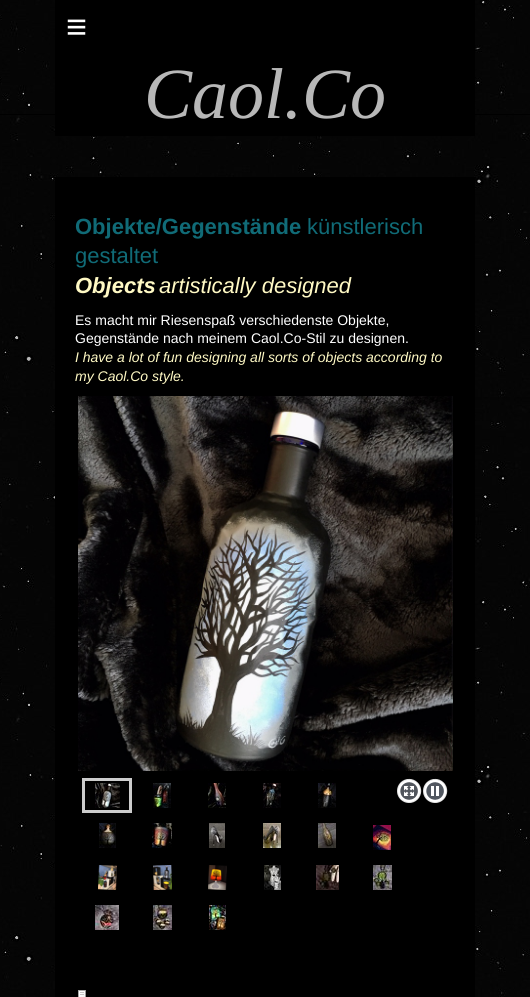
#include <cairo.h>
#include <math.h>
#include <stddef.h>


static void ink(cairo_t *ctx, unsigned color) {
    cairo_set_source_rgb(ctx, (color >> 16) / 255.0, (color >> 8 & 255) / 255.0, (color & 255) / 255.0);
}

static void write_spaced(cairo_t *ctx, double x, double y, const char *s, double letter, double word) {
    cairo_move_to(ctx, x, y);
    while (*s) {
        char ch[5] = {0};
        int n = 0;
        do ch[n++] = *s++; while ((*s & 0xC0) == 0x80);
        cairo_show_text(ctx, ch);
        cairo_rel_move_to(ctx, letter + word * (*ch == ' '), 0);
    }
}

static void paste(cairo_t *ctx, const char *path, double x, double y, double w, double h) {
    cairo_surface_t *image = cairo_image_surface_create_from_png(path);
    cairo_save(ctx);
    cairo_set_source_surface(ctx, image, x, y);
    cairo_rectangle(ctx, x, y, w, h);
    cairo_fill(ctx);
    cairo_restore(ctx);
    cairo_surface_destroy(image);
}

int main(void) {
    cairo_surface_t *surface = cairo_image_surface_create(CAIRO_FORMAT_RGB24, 530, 997);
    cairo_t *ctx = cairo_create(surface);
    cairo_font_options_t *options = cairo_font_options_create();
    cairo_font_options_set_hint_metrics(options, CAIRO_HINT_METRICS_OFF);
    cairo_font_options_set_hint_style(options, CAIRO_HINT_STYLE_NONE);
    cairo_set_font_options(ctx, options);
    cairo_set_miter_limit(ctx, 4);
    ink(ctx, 0xFFFFFF);
    cairo_paint(ctx);
    paste(ctx, "media/1.png", 0, 0, 530, 997);
    ink(ctx, 0x000000);
    cairo_rectangle(ctx, 0, 114, 530, 1);
    cairo_fill(ctx);
    cairo_rectangle(ctx, 55, 0, 420, 136);
    cairo_fill(ctx);
    cairo_select_font_face(ctx, "Liberation Sans", CAIRO_FONT_SLANT_NORMAL, CAIRO_FONT_WEIGHT_NORMAL);
    cairo_set_font_size(ctx, 36);
    ink(ctx, 0xFFFFFF);
    write_spaced(ctx, 66, 39, "≡", 10, 0);
    cairo_select_font_face(ctx, "Liberation Serif", CAIRO_FONT_SLANT_ITALIC, CAIRO_FONT_WEIGHT_NORMAL);
    cairo_set_font_size(ctx, 72);
    ink(ctx, 0xB8B8B8);
    cairo_move_to(ctx, 144, 118);
    cairo_show_text(ctx, "Caol.Co");
    ink(ctx, 0x000000);
    cairo_rectangle(ctx, 55, 177, 420, 820);
    cairo_fill(ctx);
    paste(ctx, "media/2.png", 78, 990, 8, 7);
    cairo_select_font_face(ctx, "Liberation Sans", CAIRO_FONT_SLANT_NORMAL, CAIRO_FONT_WEIGHT_BOLD);
    cairo_set_font_size(ctx, 22);
    ink(ctx, 0x106B77);
    cairo_move_to(ctx, 75, 234);
    cairo_show_text(ctx, "Objekte/Gegenstände");
    cairo_select_font_face(ctx, "Liberation Sans", CAIRO_FONT_SLANT_NORMAL, CAIRO_FONT_WEIGHT_NORMAL);
    cairo_move_to(ctx, 307, 234);
    cairo_show_text(ctx, "künstlerisch");
    cairo_move_to(ctx, 75, 263);
    cairo_show_text(ctx, "gestaltet");
    cairo_select_font_face(ctx, "Liberation Sans", CAIRO_FONT_SLANT_ITALIC, CAIRO_FONT_WEIGHT_BOLD);
    ink(ctx, 0xFFF9C4);
    cairo_move_to(ctx, 75, 293);
    cairo_show_text(ctx, "Objects");
    cairo_select_font_face(ctx, "Liberation Sans", CAIRO_FONT_SLANT_ITALIC, CAIRO_FONT_WEIGHT_NORMAL);
    cairo_move_to(ctx, 159, 293);
    cairo_show_text(ctx, "artistically designed");
    cairo_select_font_face(ctx, "Liberation Sans", CAIRO_FONT_SLANT_NORMAL, CAIRO_FONT_WEIGHT_NORMAL);
    cairo_set_font_size(ctx, 14);
    ink(ctx, 0xFFFFFF);
    cairo_move_to(ctx, 75, 325);
    cairo_show_text(ctx, "Es macht mir Riesenspaß verschiedenste Objekte,");
    cairo_move_to(ctx, 75, 343);
    cairo_show_text(ctx, "Gegenstände nach meinem Caol.Co-Stil zu designen.");
    cairo_select_font_face(ctx, "Liberation Sans", CAIRO_FONT_SLANT_ITALIC, CAIRO_FONT_WEIGHT_NORMAL);
    ink(ctx, 0xFFF9C4);
    cairo_move_to(ctx, 75, 362);
    cairo_show_text(ctx, "I have a lot of fun designing all sorts of objects according to");
    cairo_move_to(ctx, 75, 381);
    cairo_show_text(ctx, "my Caol.Co style.");
    paste(ctx, "media/3.png", 78, 396, 375, 375);
    cairo_rectangle(ctx, 83.5, 779.5, 47, 32);
    ink(ctx, 0xCCCCCC);
    cairo_set_line_width(ctx, 3);
    cairo_stroke(ctx);
    paste(ctx, "media/4.png", 95, 783, 25, 25);
    paste(ctx, "media/5.png", 153, 783, 18, 25);
    paste(ctx, "media/6.png", 208, 783, 18, 25);
    paste(ctx, "media/7.png", 263, 783, 18, 25);
    paste(ctx, "media/8.png", 318, 783, 18, 25);
    paste(ctx, "media/9.png", 397, 778, 25, 25);
    paste(ctx, "media/10.png", 423, 778, 25, 25);
    paste(ctx, "media/11.png", 99, 823, 17, 25);
    paste(ctx, "media/12.png", 152, 823, 20, 25);
    paste(ctx, "media/13.png", 209, 823, 16, 25);
    paste(ctx, "media/14.png", 263, 823, 18, 25);
    paste(ctx, "media/15.png", 318, 823, 18, 25);
    paste(ctx, "media/16.png", 373, 825, 18, 25);
    paste(ctx, "media/17.png", 98, 865, 19, 25);
    paste(ctx, "media/18.png", 153, 865, 19, 25);
    paste(ctx, "media/19.png", 208, 865, 19, 25);
    paste(ctx, "media/20.png", 264, 865, 17, 25);
    paste(ctx, "media/21.png", 316, 865, 23, 25);
    paste(ctx, "media/22.png", 373, 865, 19, 25);
    paste(ctx, "media/23.png", 95, 905, 24, 25);
    paste(ctx, "media/24.png", 153, 905, 19, 25);
    paste(ctx, "media/25.png", 209, 905, 17, 25);
    cairo_surface_write_to_png(surface, "image.png");
    cairo_font_options_destroy(options);
    cairo_destroy(ctx);
    cairo_surface_destroy(surface);
    return 0;
}
